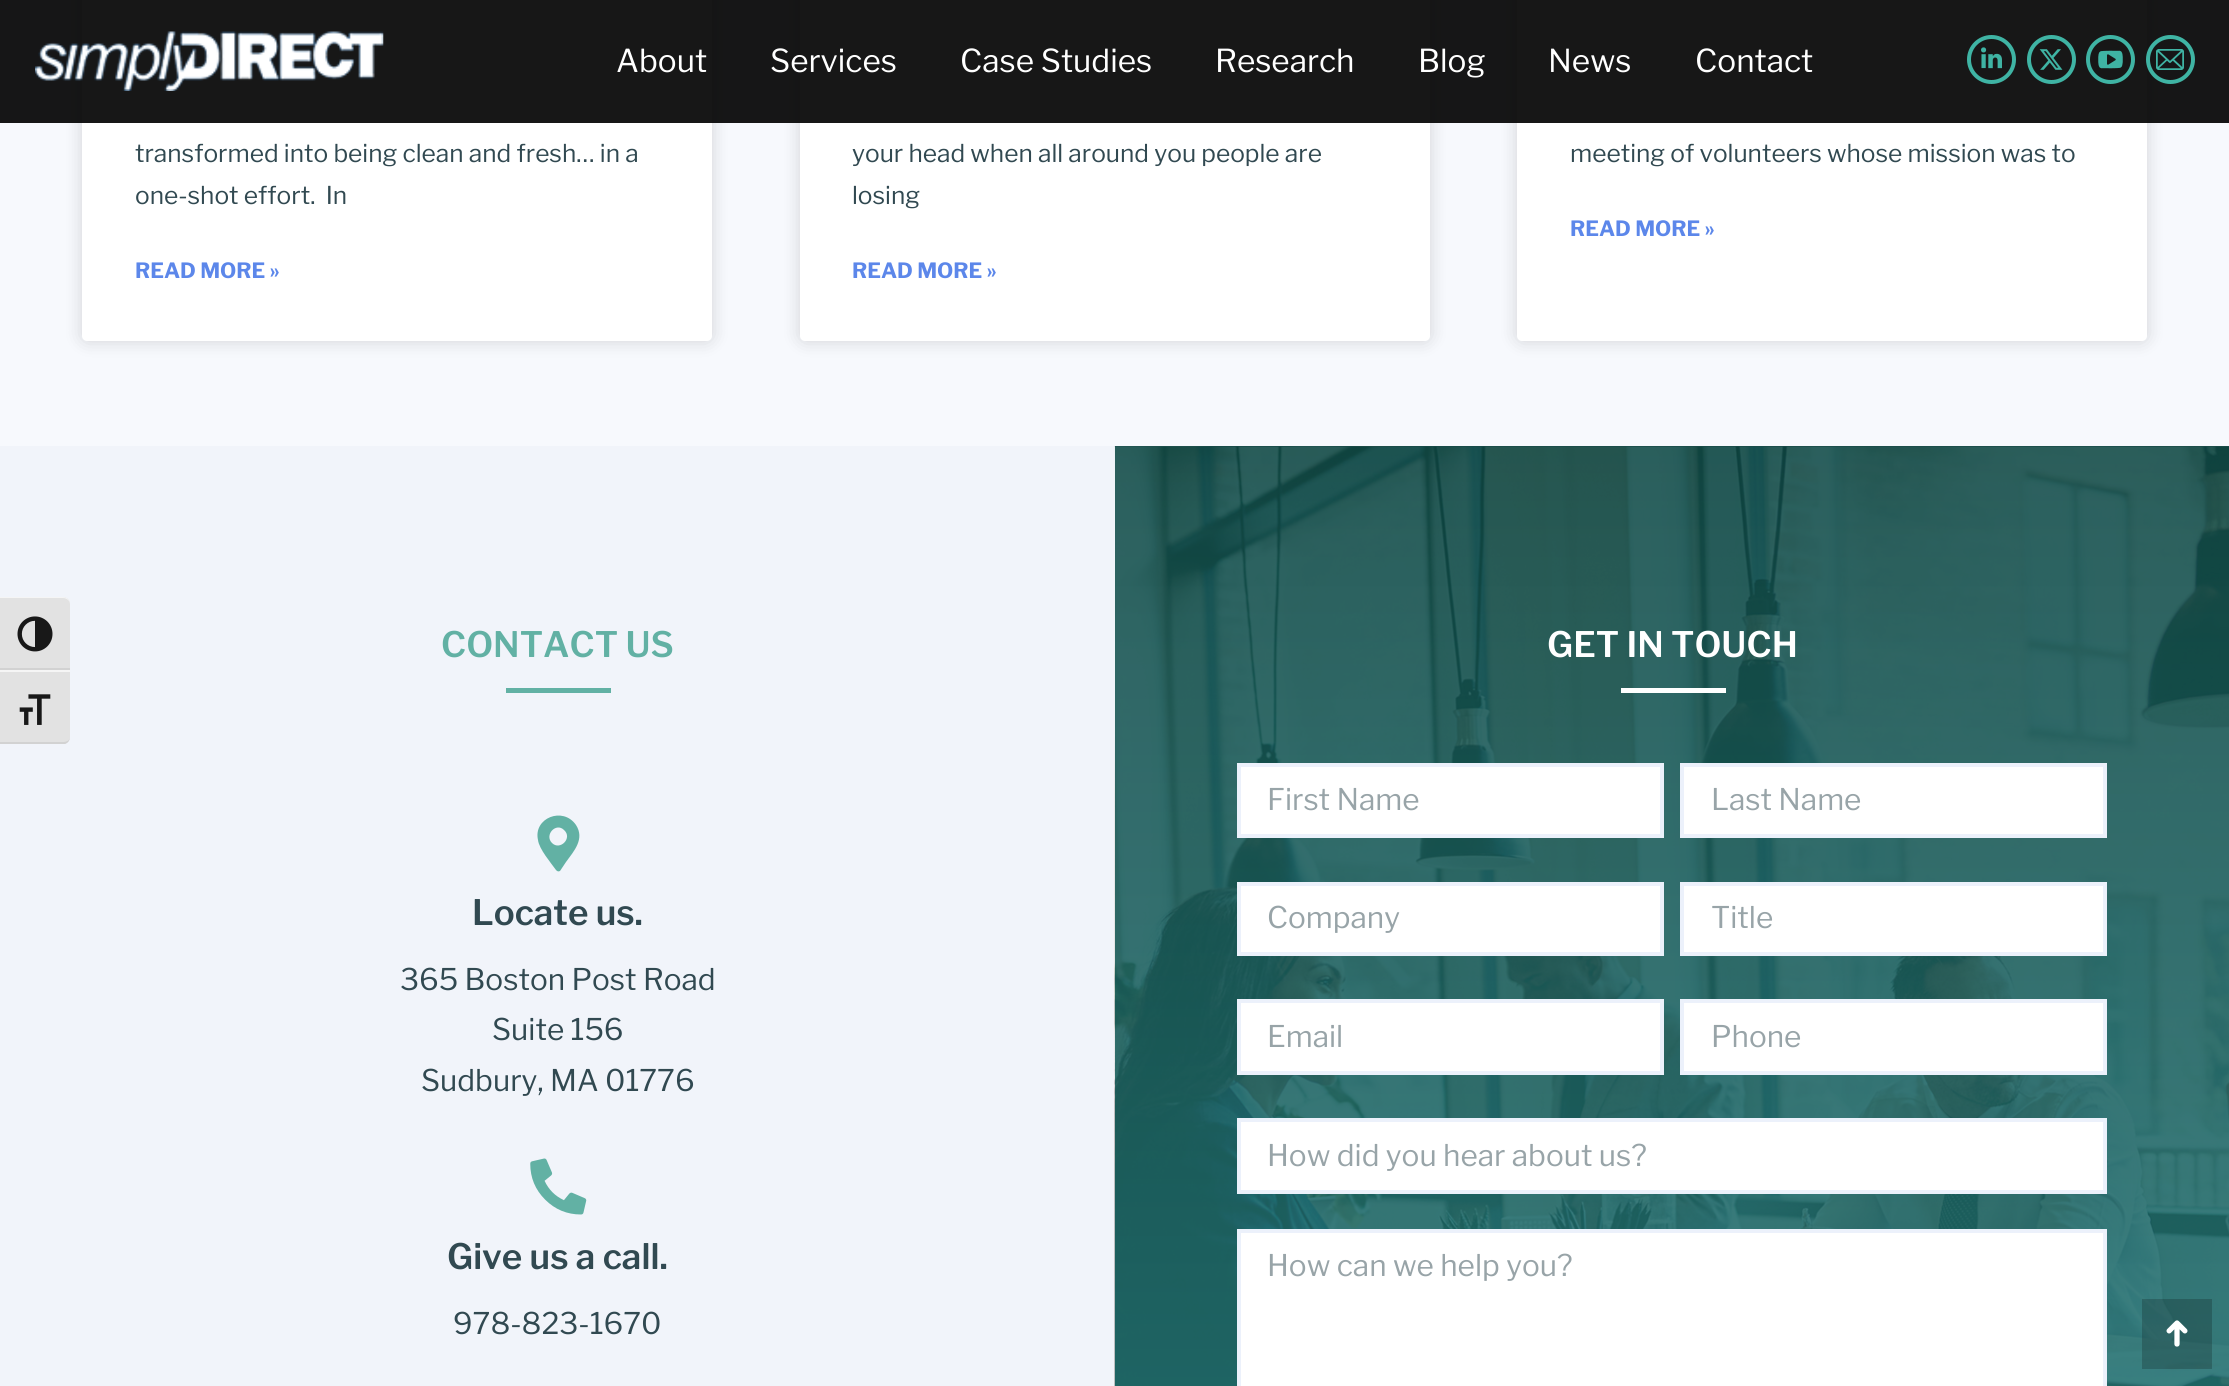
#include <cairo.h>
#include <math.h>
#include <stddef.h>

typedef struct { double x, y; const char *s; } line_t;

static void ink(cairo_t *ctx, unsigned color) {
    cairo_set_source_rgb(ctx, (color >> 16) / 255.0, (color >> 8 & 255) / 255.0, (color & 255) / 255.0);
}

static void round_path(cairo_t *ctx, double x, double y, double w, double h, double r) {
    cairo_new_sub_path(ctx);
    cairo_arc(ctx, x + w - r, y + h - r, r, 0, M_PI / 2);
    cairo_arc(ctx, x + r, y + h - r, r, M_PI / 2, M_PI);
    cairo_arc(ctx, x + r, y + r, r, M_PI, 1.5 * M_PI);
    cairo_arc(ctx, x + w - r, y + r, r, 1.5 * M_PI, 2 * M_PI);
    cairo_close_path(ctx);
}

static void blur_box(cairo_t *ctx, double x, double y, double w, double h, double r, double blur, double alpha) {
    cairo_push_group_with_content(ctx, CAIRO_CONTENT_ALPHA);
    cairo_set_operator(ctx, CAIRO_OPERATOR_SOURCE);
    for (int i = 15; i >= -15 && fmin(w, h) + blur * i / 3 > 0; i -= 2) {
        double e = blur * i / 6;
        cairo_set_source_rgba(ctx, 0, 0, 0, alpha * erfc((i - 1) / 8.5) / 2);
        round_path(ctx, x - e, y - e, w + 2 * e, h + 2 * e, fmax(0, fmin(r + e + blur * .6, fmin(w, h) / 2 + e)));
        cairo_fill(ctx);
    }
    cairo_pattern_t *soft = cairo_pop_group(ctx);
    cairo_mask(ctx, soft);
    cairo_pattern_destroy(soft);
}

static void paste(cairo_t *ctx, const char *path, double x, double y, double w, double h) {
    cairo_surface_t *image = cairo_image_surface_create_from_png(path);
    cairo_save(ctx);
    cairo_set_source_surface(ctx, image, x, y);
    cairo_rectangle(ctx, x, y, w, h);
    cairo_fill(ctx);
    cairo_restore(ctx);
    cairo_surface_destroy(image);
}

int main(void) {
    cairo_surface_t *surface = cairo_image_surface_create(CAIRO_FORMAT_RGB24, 2229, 1386);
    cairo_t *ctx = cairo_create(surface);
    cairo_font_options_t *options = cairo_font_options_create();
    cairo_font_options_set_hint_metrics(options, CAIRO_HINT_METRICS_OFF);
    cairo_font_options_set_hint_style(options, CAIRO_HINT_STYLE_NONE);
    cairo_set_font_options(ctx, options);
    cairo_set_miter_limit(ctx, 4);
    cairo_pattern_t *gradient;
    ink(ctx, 0xF7F9FD);
    cairo_paint(ctx);
    ink(ctx, 0xF1F4FA);
    cairo_rectangle(ctx, 0, 446, 2229, 940);
    cairo_fill(ctx);
    ink(ctx, 0xE2E2E2);
    cairo_new_path(ctx);
    cairo_move_to(ctx, 0, 597);
    cairo_line_to(ctx, 63, 597);
    cairo_curve_to(ctx, 67, 597, 70, 600, 70, 604);
    cairo_line_to(ctx, 70, 670);
    cairo_line_to(ctx, 0, 670);
    cairo_close_path(ctx);
    cairo_fill(ctx);
    ink(ctx, 0xF5F5F5);
    cairo_new_path(ctx);
    cairo_move_to(ctx, 0, 598);
    cairo_line_to(ctx, 63, 598);
    cairo_curve_to(ctx, 67, 598, 70, 601, 70, 604);
    cairo_curve_to(ctx, 70, 600, 67, 597, 63, 597);
    cairo_line_to(ctx, 0, 597);
    cairo_close_path(ctx);
    cairo_fill(ctx);
    ink(ctx, 0xD2D2D2);
    cairo_rectangle(ctx, 0, 668, 70, 2);
    cairo_fill(ctx);
    paste(ctx, "media/1.png", 17, 616, 36, 36);
    ink(ctx, 0xE2E2E2);
    cairo_new_path(ctx);
    cairo_move_to(ctx, 0, 670);
    cairo_line_to(ctx, 70, 670);
    cairo_line_to(ctx, 70, 737);
    cairo_curve_to(ctx, 70, 741, 67, 744, 63, 744);
    cairo_line_to(ctx, 0, 744);
    cairo_close_path(ctx);
    cairo_fill(ctx);
    ink(ctx, 0xF5F5F5);
    cairo_rectangle(ctx, 0, 670, 70, 2);
    cairo_fill(ctx);
    ink(ctx, 0xD2D2D2);
    cairo_new_path(ctx);
    cairo_move_to(ctx, 65, 744);
    cairo_curve_to(ctx, 68, 743, 70, 740, 70, 737);
    cairo_curve_to(ctx, 70, 740, 67, 742, 63, 742);
    cairo_line_to(ctx, 0, 742);
    cairo_line_to(ctx, 0, 744);
    cairo_close_path(ctx);
    cairo_fill(ctx);
    paste(ctx, "media/2.png", 19, 694, 32, 31);
    ink(ctx, 0x000000);
    blur_box(ctx, 82, -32, 630, 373, 5, 9, 0.15);
    ink(ctx, 0xFFFFFF);
    round_path(ctx, 82, -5, 630, 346, 5);
    cairo_fill(ctx);
    ink(ctx, 0x000000);
    blur_box(ctx, 800, -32, 630, 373, 5, 9, 0.15);
    ink(ctx, 0xFFFFFF);
    round_path(ctx, 800, -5, 630, 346, 5);
    cairo_fill(ctx);
    ink(ctx, 0x000000);
    blur_box(ctx, 1517, -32, 630, 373, 5, 9, 0.15);
    ink(ctx, 0xFFFFFF);
    round_path(ctx, 1517, -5, 630, 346, 5);
    cairo_fill(ctx);
    cairo_set_source_rgba(ctx, 0, 0, 0, 0.91);
    cairo_rectangle(ctx, 0, 0, 2229, 123);
    cairo_fill(ctx);
    paste(ctx, "media/3.png", 35, 31, 349, 60);
    cairo_select_font_face(ctx, "Libre Franklin", CAIRO_FONT_SLANT_NORMAL, CAIRO_FONT_WEIGHT_NORMAL);
    cairo_set_font_size(ctx, 31.5);
    ink(ctx, 0xFFFFFF);
    {
        static const line_t items[] = {
            {616, 72, "About"},
            {770, 72, "Services"},
            {960, 72, "Case Studies"},
            {1215, 72, "Research"},
            {1418, 72, "Blog"},
            {1548, 72, "News"},
            {1695, 72, "Contact"},
        };
        for (size_t i = 0; i < sizeof items / sizeof *items; i++) {
            cairo_move_to(ctx, items[i].x, items[i].y);
            cairo_show_text(ctx, items[i].s);
        }
    }
    cairo_new_path(ctx);
    cairo_arc(ctx, 1991.5, 59.5, 22.5, 0, 2 * M_PI);
    ink(ctx, 0x3FB4A4);
    cairo_set_line_width(ctx, 4);
    cairo_stroke(ctx);
    paste(ctx, "media/4.png", 1981, 47, 21, 22);
    cairo_arc(ctx, 2051.5, 59.5, 22.5, 0, 2 * M_PI);
    cairo_stroke(ctx);
    paste(ctx, "media/5.png", 2039, 49, 24, 21);
    cairo_arc(ctx, 2110.5, 59.5, 22.5, 0, 2 * M_PI);
    cairo_stroke(ctx);
    paste(ctx, "media/6.png", 2098, 50, 25, 19);
    cairo_arc(ctx, 2170.5, 59.5, 22.5, 0, 2 * M_PI);
    cairo_stroke(ctx);
    paste(ctx, "media/7.png", 2156, 49, 28, 21);
    cairo_set_font_size(ctx, 24.5);
    ink(ctx, 0x314951);
    cairo_move_to(ctx, 135, 162);
    cairo_show_text(ctx, "transformed into being clean and fresh… in a");
    cairo_move_to(ctx, 135, 204);
    cairo_show_text(ctx, "one-shot effort.  In");
    cairo_select_font_face(ctx, "Libre Franklin", CAIRO_FONT_SLANT_NORMAL, CAIRO_FONT_WEIGHT_BOLD);
    cairo_set_font_size(ctx, 21);
    ink(ctx, 0x5C87EA);
    cairo_move_to(ctx, 135, 278);
    cairo_show_text(ctx, "READ MORE »");
    cairo_select_font_face(ctx, "Libre Franklin", CAIRO_FONT_SLANT_NORMAL, CAIRO_FONT_WEIGHT_NORMAL);
    cairo_set_font_size(ctx, 24.5);
    ink(ctx, 0x314951);
    cairo_move_to(ctx, 852, 162);
    cairo_show_text(ctx, "your head when all around you people are");
    cairo_move_to(ctx, 852, 204);
    cairo_show_text(ctx, "losing");
    cairo_select_font_face(ctx, "Libre Franklin", CAIRO_FONT_SLANT_NORMAL, CAIRO_FONT_WEIGHT_BOLD);
    cairo_set_font_size(ctx, 21);
    ink(ctx, 0x5C87EA);
    cairo_move_to(ctx, 852, 278);
    cairo_show_text(ctx, "READ MORE »");
    cairo_select_font_face(ctx, "Libre Franklin", CAIRO_FONT_SLANT_NORMAL, CAIRO_FONT_WEIGHT_NORMAL);
    cairo_set_font_size(ctx, 24.5);
    ink(ctx, 0x314951);
    cairo_move_to(ctx, 1570, 162);
    cairo_show_text(ctx, "meeting of volunteers whose mission was to");
    cairo_select_font_face(ctx, "Libre Franklin", CAIRO_FONT_SLANT_NORMAL, CAIRO_FONT_WEIGHT_BOLD);
    cairo_set_font_size(ctx, 21);
    ink(ctx, 0x5C87EA);
    cairo_move_to(ctx, 1570, 236);
    cairo_show_text(ctx, "READ MORE »");
    cairo_select_font_face(ctx, "Libre Franklin SemiBold", CAIRO_FONT_SLANT_NORMAL, CAIRO_FONT_WEIGHT_NORMAL);
    cairo_set_font_size(ctx, 35);
    ink(ctx, 0x62B1A4);
    cairo_move_to(ctx, 441, 657);
    cairo_show_text(ctx, "CONTACT US");
    cairo_rectangle(ctx, 506, 688, 105, 5);
    cairo_fill(ctx);
    cairo_new_path(ctx);
    cairo_move_to(ctx, 556, 870);
    cairo_curve_to(ctx, 551, 863, 539, 849, 538, 840);
    cairo_curve_to(ctx, 533, 818, 563, 806, 576, 825);
    cairo_curve_to(ctx, 585, 839, 574, 851, 566, 862);
    cairo_line_to(ctx, 560, 871);
    cairo_curve_to(ctx, 558, 872, 557, 871, 556, 870);
    cairo_close_path(ctx);
    cairo_move_to(ctx, 552, 843);
    cairo_curve_to(ctx, 560, 851, 573, 838, 564, 830);
    cairo_curve_to(ctx, 556, 822, 544, 835, 552, 843);
    cairo_close_path(ctx);
    cairo_fill(ctx);
    ink(ctx, 0x314951);
    cairo_move_to(ctx, 472, 925);
    cairo_show_text(ctx, "Locate us.");
    cairo_select_font_face(ctx, "Libre Franklin", CAIRO_FONT_SLANT_NORMAL, CAIRO_FONT_WEIGHT_NORMAL);
    cairo_set_font_size(ctx, 29.75);
    {
        static const line_t items[] = {
            {400, 990, "365 Boston Post Road"},
            {492, 1040, "Suite 156"},
            {421, 1091, "Sudbury, MA 01776"},
        };
        for (size_t i = 0; i < sizeof items / sizeof *items; i++) {
            cairo_move_to(ctx, items[i].x, items[i].y);
            cairo_show_text(ctx, items[i].s);
        }
    }
    paste(ctx, "media/8.png", 530, 1158, 57, 57);
    cairo_select_font_face(ctx, "Libre Franklin SemiBold", CAIRO_FONT_SLANT_NORMAL, CAIRO_FONT_WEIGHT_NORMAL);
    cairo_set_font_size(ctx, 35);
    cairo_move_to(ctx, 447, 1269);
    cairo_show_text(ctx, "Give us a call.");
    cairo_select_font_face(ctx, "Libre Franklin", CAIRO_FONT_SLANT_NORMAL, CAIRO_FONT_WEIGHT_NORMAL);
    cairo_set_font_size(ctx, 29.75);
    cairo_move_to(ctx, 453, 1334);
    cairo_show_text(ctx, "978-823-1670");
    paste(ctx, "media/9.png", 1114, 446, 1115, 940);
    gradient = cairo_pattern_create_linear(1672, 446, 1672, 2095);
    cairo_pattern_add_color_stop_rgba(gradient, 0, 0.055, 0.282, 0.271, 0.87);
    cairo_pattern_add_color_stop_rgba(gradient, 1, 0.176, 0.545, 0.557, 0.87);
    cairo_set_source(ctx, gradient);
    cairo_pattern_destroy(gradient);
    cairo_rectangle(ctx, 1115, 446, 1114, 940);
    cairo_fill(ctx);
    cairo_select_font_face(ctx, "Libre Franklin SemiBold", CAIRO_FONT_SLANT_NORMAL, CAIRO_FONT_WEIGHT_NORMAL);
    cairo_set_font_size(ctx, 35);
    ink(ctx, 0xFFFFFF);
    cairo_move_to(ctx, 1547, 657);
    cairo_show_text(ctx, "GET IN TOUCH");
    cairo_rectangle(ctx, 1621, 688, 105, 5);
    cairo_fill(ctx);
    cairo_rectangle(ctx, 1239, 765, 423, 71);
    cairo_fill_preserve(ctx);
    ink(ctx, 0xECF1FB);
    cairo_stroke(ctx);
    cairo_select_font_face(ctx, "Libre Franklin", CAIRO_FONT_SLANT_NORMAL, CAIRO_FONT_WEIGHT_NORMAL);
    cairo_set_font_size(ctx, 29.75);
    ink(ctx, 0x98A4A8);
    cairo_move_to(ctx, 1267, 810);
    cairo_show_text(ctx, "First Name");
    ink(ctx, 0xFFFFFF);
    cairo_rectangle(ctx, 1682, 765, 423, 71);
    cairo_fill_preserve(ctx);
    ink(ctx, 0xECF1FB);
    cairo_stroke(ctx);
    ink(ctx, 0x98A4A8);
    cairo_move_to(ctx, 1711, 810);
    cairo_show_text(ctx, "Last Name");
    ink(ctx, 0xFFFFFF);
    cairo_rectangle(ctx, 1239, 884, 423, 70);
    cairo_fill_preserve(ctx);
    ink(ctx, 0xECF1FB);
    cairo_stroke(ctx);
    ink(ctx, 0x98A4A8);
    cairo_move_to(ctx, 1267, 928);
    cairo_show_text(ctx, "Company");
    ink(ctx, 0xFFFFFF);
    cairo_rectangle(ctx, 1682, 884, 423, 70);
    cairo_fill_preserve(ctx);
    ink(ctx, 0xECF1FB);
    cairo_stroke(ctx);
    ink(ctx, 0x98A4A8);
    cairo_move_to(ctx, 1711, 928);
    cairo_show_text(ctx, "Title");
    ink(ctx, 0xFFFFFF);
    cairo_rectangle(ctx, 1239, 1001, 423, 72);
    cairo_fill_preserve(ctx);
    ink(ctx, 0xECF1FB);
    cairo_stroke(ctx);
    ink(ctx, 0x98A4A8);
    cairo_move_to(ctx, 1267, 1047);
    cairo_show_text(ctx, "Email");
    ink(ctx, 0xFFFFFF);
    cairo_rectangle(ctx, 1682, 1001, 423, 72);
    cairo_fill_preserve(ctx);
    ink(ctx, 0xECF1FB);
    cairo_stroke(ctx);
    ink(ctx, 0x98A4A8);
    cairo_move_to(ctx, 1711, 1047);
    cairo_show_text(ctx, "Phone");
    ink(ctx, 0xFFFFFF);
    cairo_rectangle(ctx, 1239, 1120, 866, 72);
    cairo_fill_preserve(ctx);
    ink(ctx, 0xECF1FB);
    cairo_stroke(ctx);
    ink(ctx, 0x98A4A8);
    cairo_move_to(ctx, 1267, 1166);
    cairo_show_text(ctx, "How did you hear about us?");
    ink(ctx, 0xFFFFFF);
    cairo_rectangle(ctx, 1239, 1231, 866, 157);
    cairo_fill_preserve(ctx);
    ink(ctx, 0xECF1FB);
    cairo_stroke(ctx);
    ink(ctx, 0x98A4A8);
    cairo_move_to(ctx, 1267, 1276);
    cairo_show_text(ctx, "How can we help you?");
    cairo_set_source_rgba(ctx, 0, 0, 0, 0.2);
    cairo_rectangle(ctx, 2142, 1299, 70, 70);
    cairo_fill(ctx);
    paste(ctx, "media/10.png", 2166, 1320, 22, 27);
    cairo_surface_write_to_png(surface, "image.png");
    cairo_font_options_destroy(options);
    cairo_destroy(ctx);
    cairo_surface_destroy(surface);
    return 0;
}
